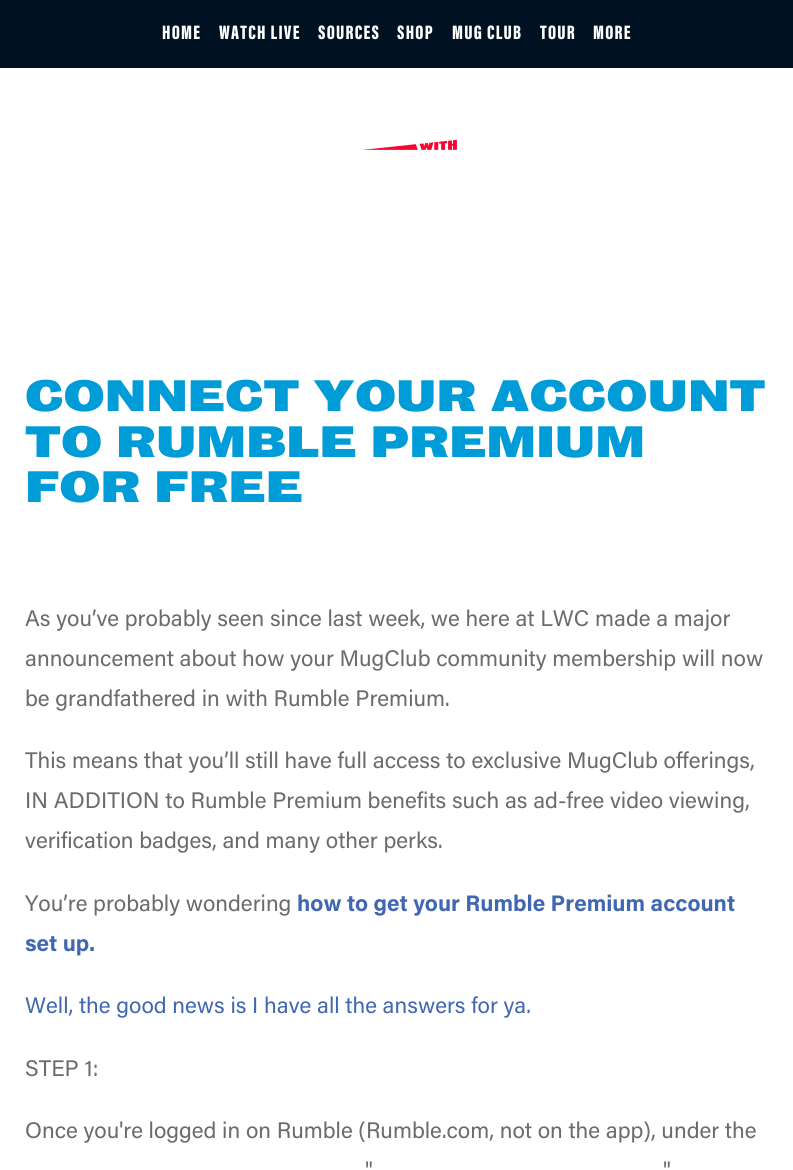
#include <cairo.h>
#include <math.h>
#include <stddef.h>

typedef struct { double x, y; const char *s; } line_t;

static void ink(cairo_t *ctx, unsigned color) {
    cairo_set_source_rgb(ctx, (color >> 16) / 255.0, (color >> 8 & 255) / 255.0, (color & 255) / 255.0);
}

static void write_spaced(cairo_t *ctx, double x, double y, const char *s, double letter, double word) {
    cairo_move_to(ctx, x, y);
    while (*s) {
        char ch[5] = {0};
        int n = 0;
        do ch[n++] = *s++; while ((*s & 0xC0) == 0x80);
        cairo_show_text(ctx, ch);
        cairo_rel_move_to(ctx, letter + word * (*ch == ' '), 0);
    }
}

static void paste(cairo_t *ctx, const char *path, double x, double y, double w, double h) {
    cairo_surface_t *image = cairo_image_surface_create_from_png(path);
    cairo_save(ctx);
    cairo_set_source_surface(ctx, image, x, y);
    cairo_rectangle(ctx, x, y, w, h);
    cairo_fill(ctx);
    cairo_restore(ctx);
    cairo_surface_destroy(image);
}

int main(void) {
    cairo_surface_t *surface = cairo_image_surface_create(CAIRO_FORMAT_RGB24, 793, 1170);
    cairo_t *ctx = cairo_create(surface);
    cairo_font_options_t *options = cairo_font_options_create();
    cairo_font_options_set_hint_metrics(options, CAIRO_HINT_METRICS_OFF);
    cairo_font_options_set_hint_style(options, CAIRO_HINT_STYLE_NONE);
    cairo_set_font_options(ctx, options);
    cairo_set_miter_limit(ctx, 4);
    ink(ctx, 0xFFFFFF);
    cairo_paint(ctx);
    ink(ctx, 0x001222);
    cairo_rectangle(ctx, 0, 0, 793, 68);
    cairo_fill(ctx);
    cairo_select_font_face(ctx, "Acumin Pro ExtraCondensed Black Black", CAIRO_FONT_SLANT_NORMAL, CAIRO_FONT_WEIGHT_NORMAL);
    cairo_set_font_size(ctx, 20);
    ink(ctx, 0xFFFFFF);
    {
        static const line_t items[] = {
            {162, 39, "HOME"},
            {219, 39, "WATCH LIVE"},
            {318, 39, "SOURCES"},
            {397, 39, "SHOP"},
            {452, 39, "MUG CLUB"},
            {540, 39, "TOUR"},
            {593, 39, "MORE"},
        };
        for (size_t i = 0; i < sizeof items / sizeof *items; i++) {
            write_spaced(ctx, items[i].x, items[i].y, items[i].s, 1.25, 0);
        }
    }
    paste(ctx, "media/1.png", 362, 139, 95, 11);
    cairo_select_font_face(ctx, "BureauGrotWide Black", CAIRO_FONT_SLANT_NORMAL, CAIRO_FONT_WEIGHT_NORMAL);
    cairo_set_font_size(ctx, 40);
    ink(ctx, 0x009CD7);
    {
        static const line_t items[] = {
            {25, 411, "CONNECT YOUR ACCOUNT"},
            {25, 457, "TO RUMBLE PREMIUM"},
            {25, 502, "FOR FREE"},
        };
        for (size_t i = 0; i < sizeof items / sizeof *items; i++) {
            cairo_move_to(ctx, items[i].x, items[i].y);
            cairo_show_text(ctx, items[i].s);
        }
    }
    cairo_select_font_face(ctx, "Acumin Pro", CAIRO_FONT_SLANT_NORMAL, CAIRO_FONT_WEIGHT_NORMAL);
    cairo_set_font_size(ctx, 22.5);
    ink(ctx, 0x6B6B6B);
    {
        static const line_t items[] = {
            {25, 626, "As you’ve probably seen since last week, we here at LWC made a major"},
            {25, 666, "announcement about how your MugClub community membership will now"},
            {25, 706, "be grandfathered in with Rumble Premium."},
            {25, 768, "This means that you’ll still have full access to exclusive MugClub offerings,"},
            {25, 808, "IN ADDITION to Rumble Premium benefits such as ad-free video viewing,"},
            {25, 848, "verification badges, and many other perks."},
            {25, 911, "You’re probably wondering"},
        };
        for (size_t i = 0; i < sizeof items / sizeof *items; i++) {
            cairo_move_to(ctx, items[i].x, items[i].y);
            cairo_show_text(ctx, items[i].s);
        }
    }
    cairo_select_font_face(ctx, "Acumin Pro", CAIRO_FONT_SLANT_NORMAL, CAIRO_FONT_WEIGHT_BOLD);
    ink(ctx, 0x4267B2);
    cairo_move_to(ctx, 297, 911);
    cairo_show_text(ctx, "how to get your Rumble Premium account");
    cairo_move_to(ctx, 25, 951);
    cairo_show_text(ctx, "set up.");
    cairo_select_font_face(ctx, "Acumin Pro", CAIRO_FONT_SLANT_NORMAL, CAIRO_FONT_WEIGHT_NORMAL);
    cairo_move_to(ctx, 25, 1013);
    cairo_show_text(ctx, "Well, the good news is I have all the answers for ya.");
    ink(ctx, 0x6B6B6B);
    {
        static const line_t items[] = {
            {25, 1076, "STEP 1:"},
            {25, 1138, "Once you're logged in on Rumble (Rumble.com, not on the app), under the"},
            {365, 1178, "\""},
            {663, 1178, "\""},
        };
        for (size_t i = 0; i < sizeof items / sizeof *items; i++) {
            cairo_move_to(ctx, items[i].x, items[i].y);
            cairo_show_text(ctx, items[i].s);
        }
    }
    cairo_surface_write_to_png(surface, "image.png");
    cairo_font_options_destroy(options);
    cairo_destroy(ctx);
    cairo_surface_destroy(surface);
    return 0;
}
